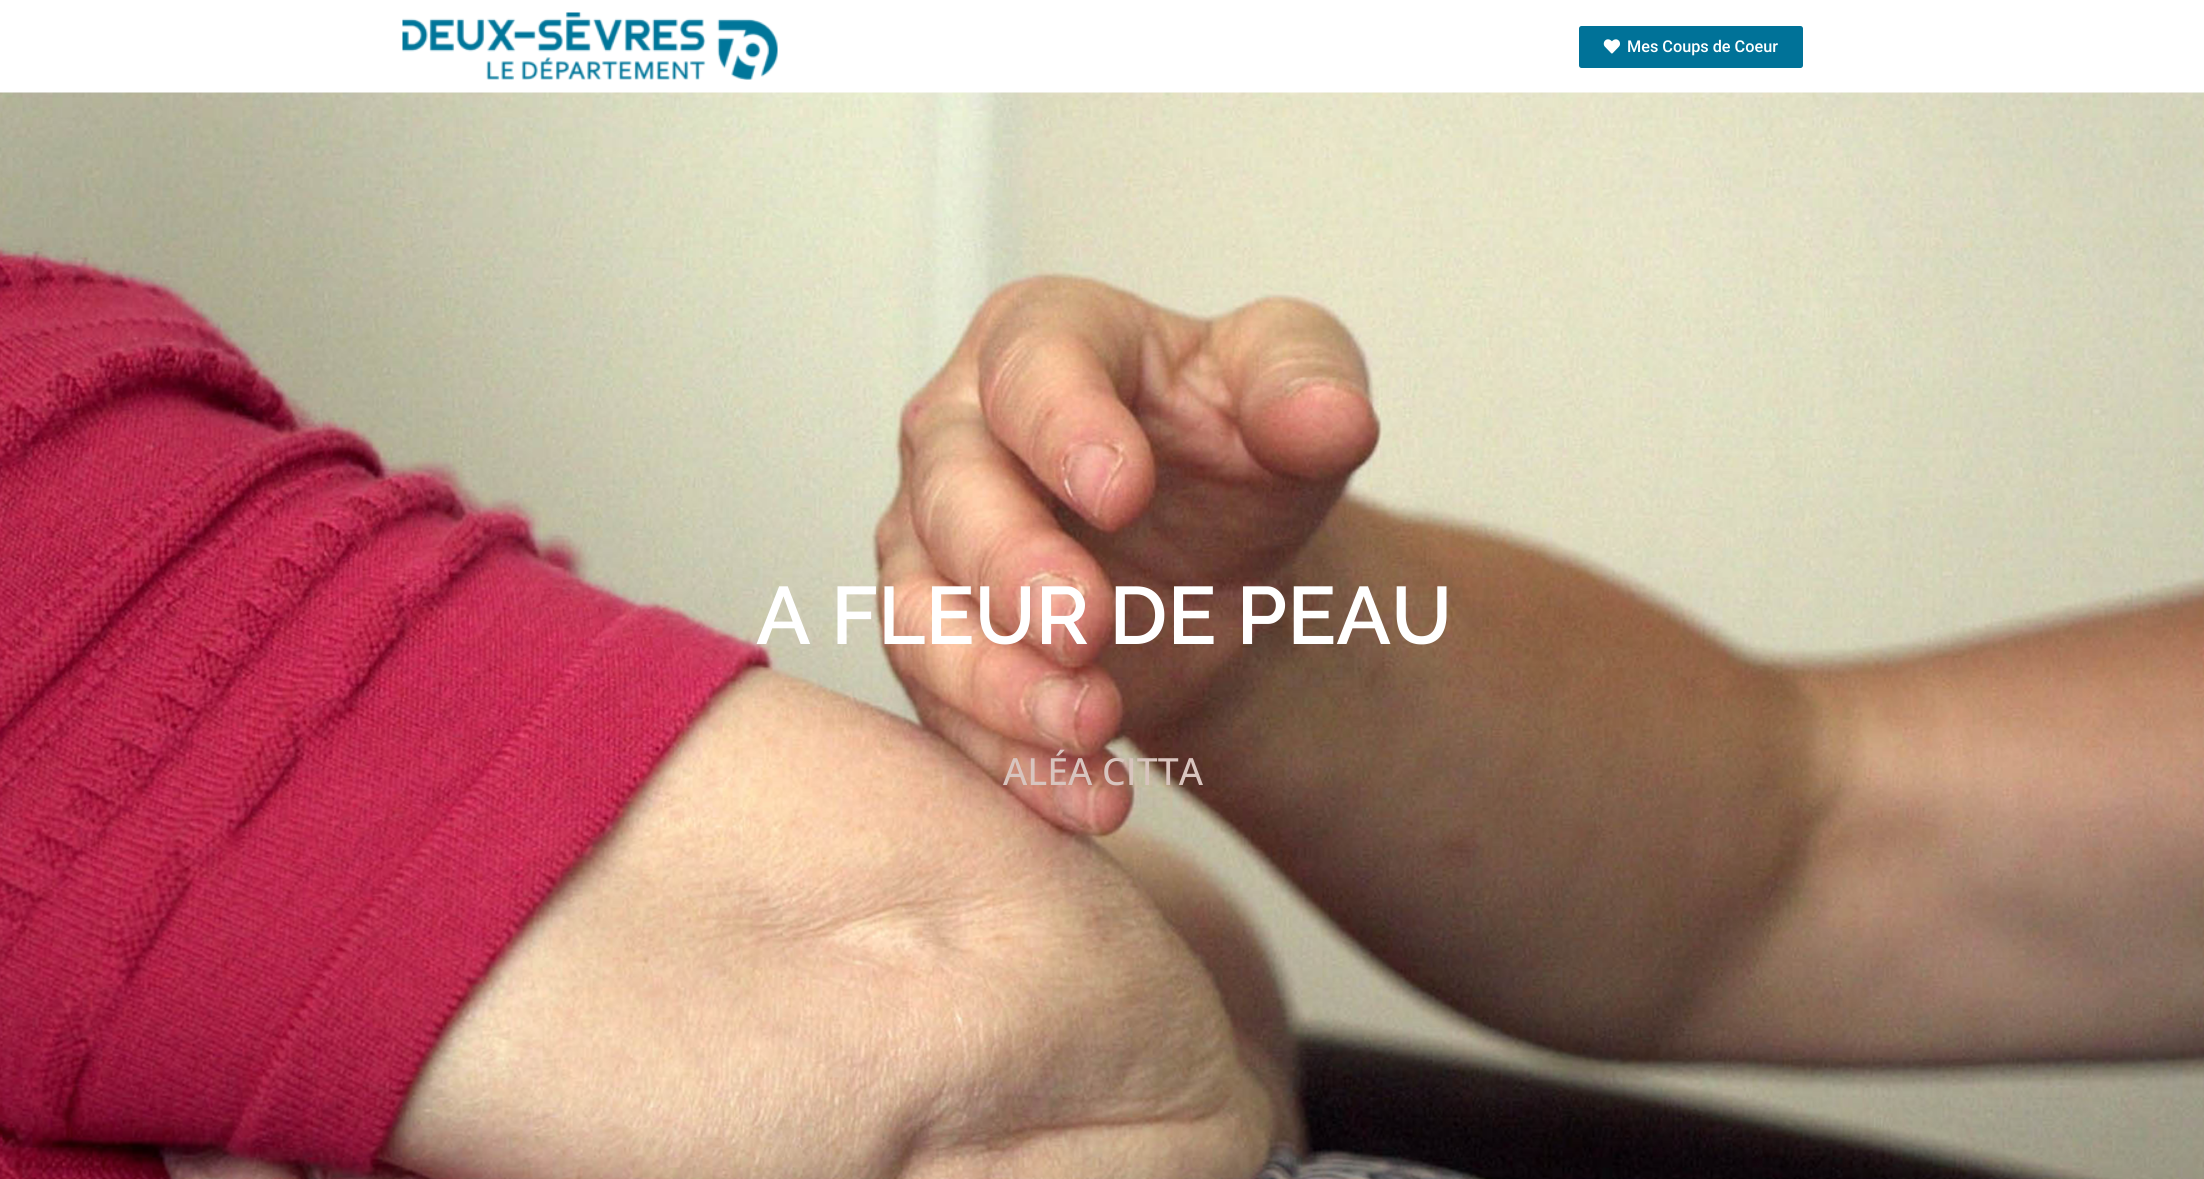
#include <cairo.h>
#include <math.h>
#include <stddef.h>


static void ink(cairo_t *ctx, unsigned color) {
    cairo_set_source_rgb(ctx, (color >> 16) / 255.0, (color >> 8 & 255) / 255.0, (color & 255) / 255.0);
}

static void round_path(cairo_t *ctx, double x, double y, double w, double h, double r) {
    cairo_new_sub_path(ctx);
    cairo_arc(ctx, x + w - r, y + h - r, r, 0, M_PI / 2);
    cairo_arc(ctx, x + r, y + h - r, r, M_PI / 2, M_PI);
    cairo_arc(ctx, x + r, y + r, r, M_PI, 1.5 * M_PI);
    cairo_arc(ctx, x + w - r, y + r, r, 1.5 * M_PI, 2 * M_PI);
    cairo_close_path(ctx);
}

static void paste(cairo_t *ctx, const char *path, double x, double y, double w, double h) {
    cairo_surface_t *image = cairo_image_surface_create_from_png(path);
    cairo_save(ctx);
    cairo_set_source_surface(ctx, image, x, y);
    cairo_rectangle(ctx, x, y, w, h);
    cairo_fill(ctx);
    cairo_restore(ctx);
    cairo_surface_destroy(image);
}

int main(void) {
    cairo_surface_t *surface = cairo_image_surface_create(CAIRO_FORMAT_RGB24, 2204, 1179);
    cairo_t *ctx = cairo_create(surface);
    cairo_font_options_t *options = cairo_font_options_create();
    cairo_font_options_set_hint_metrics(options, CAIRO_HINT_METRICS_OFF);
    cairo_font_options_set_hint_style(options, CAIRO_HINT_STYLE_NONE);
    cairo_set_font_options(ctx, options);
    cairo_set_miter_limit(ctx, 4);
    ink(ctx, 0xFFFFFF);
    cairo_paint(ctx);
    paste(ctx, "media/1.png", 402, 12, 376, 68);
    ink(ctx, 0x007298);
    round_path(ctx, 1579, 26, 224, 42, 2.5);
    cairo_fill(ctx);
    paste(ctx, "media/2.png", 1603, 39, 17, 15);
    cairo_select_font_face(ctx, "Roboto Medium", CAIRO_FONT_SLANT_NORMAL, CAIRO_FONT_WEIGHT_NORMAL);
    cairo_set_font_size(ctx, 16.25);
    ink(ctx, 0xFFFFFF);
    cairo_move_to(ctx, 1627, 52);
    cairo_show_text(ctx, "Mes Coups de Coeur");
    paste(ctx, "media/3.png", 0, 92, 2204, 1087);
    cairo_select_font_face(ctx, "Raleway SemiBold", CAIRO_FONT_SLANT_NORMAL, CAIRO_FONT_WEIGHT_NORMAL);
    cairo_set_font_size(ctx, 81.25);
    cairo_move_to(ctx, 756, 644);
    cairo_show_text(ctx, "A FLEUR DE PEAU");
    cairo_select_font_face(ctx, "Open Sans Medium", CAIRO_FONT_SLANT_NORMAL, CAIRO_FONT_WEIGHT_NORMAL);
    cairo_set_font_size(ctx, 37.5);
    ink(ctx, 0xD8C4BE);
    cairo_move_to(ctx, 1003, 785);
    cairo_show_text(ctx, "ALÉA CITTA");
    cairo_surface_write_to_png(surface, "image.png");
    cairo_font_options_destroy(options);
    cairo_destroy(ctx);
    cairo_surface_destroy(surface);
    return 0;
}
